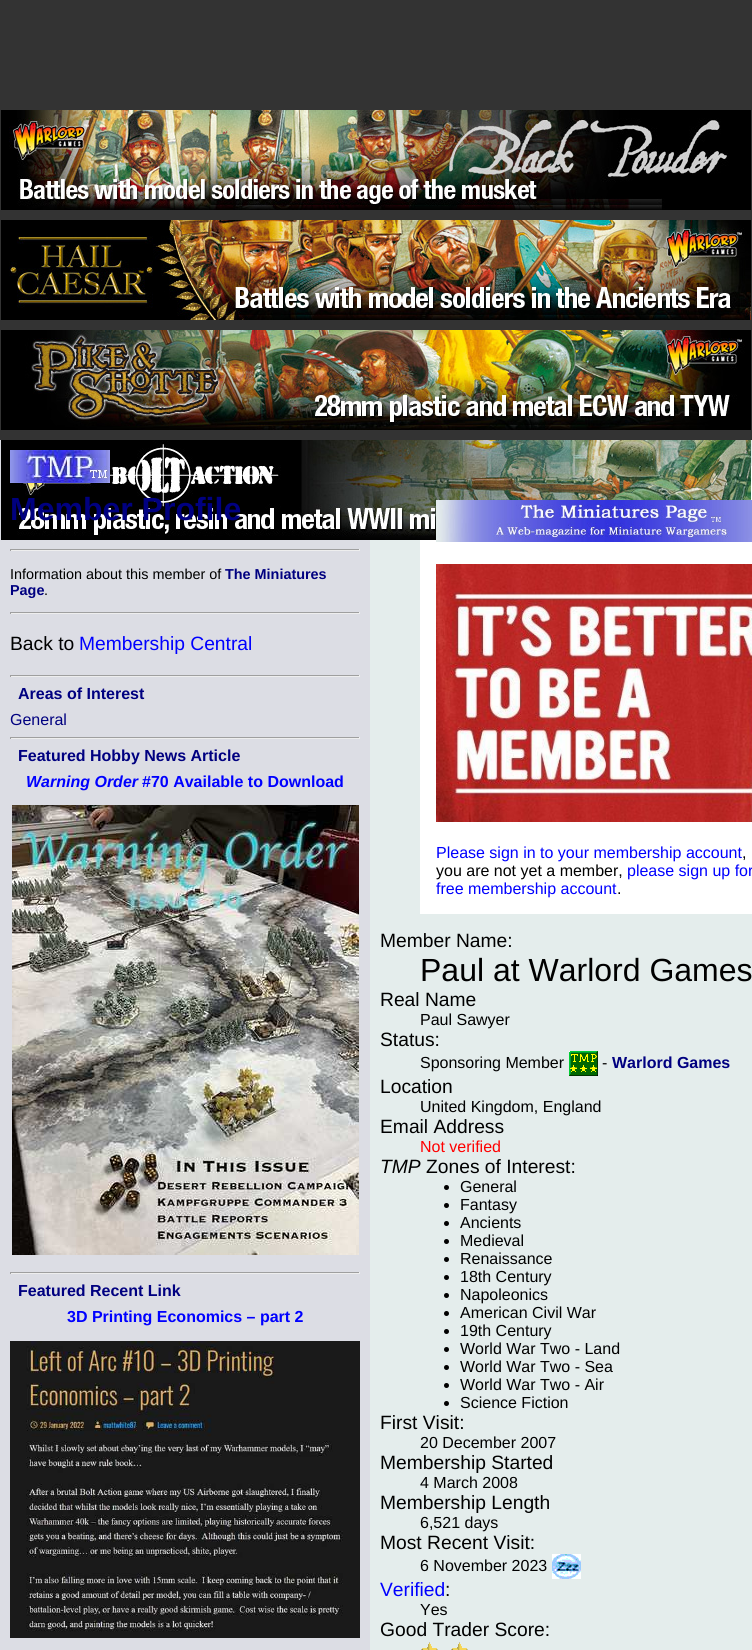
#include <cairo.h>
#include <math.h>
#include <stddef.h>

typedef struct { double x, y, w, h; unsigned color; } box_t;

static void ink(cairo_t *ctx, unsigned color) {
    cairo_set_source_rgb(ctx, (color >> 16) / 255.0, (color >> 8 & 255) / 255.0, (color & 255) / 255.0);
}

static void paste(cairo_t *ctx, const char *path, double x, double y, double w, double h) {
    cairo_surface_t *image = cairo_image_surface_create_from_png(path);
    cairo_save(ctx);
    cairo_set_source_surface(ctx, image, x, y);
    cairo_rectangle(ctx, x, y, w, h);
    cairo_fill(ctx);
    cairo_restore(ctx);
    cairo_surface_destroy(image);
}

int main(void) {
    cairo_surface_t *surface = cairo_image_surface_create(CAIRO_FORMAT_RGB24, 752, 1650);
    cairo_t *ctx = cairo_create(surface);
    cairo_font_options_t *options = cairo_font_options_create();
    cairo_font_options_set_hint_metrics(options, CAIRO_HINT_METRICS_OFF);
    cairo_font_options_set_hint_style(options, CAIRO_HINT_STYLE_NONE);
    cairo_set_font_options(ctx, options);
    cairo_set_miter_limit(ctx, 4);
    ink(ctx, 0xE4EDEC);
    cairo_paint(ctx);
    ink(ctx, 0x333333);
    cairo_rectangle(ctx, 0, 0, 752, 440);
    cairo_fill(ctx);
    paste(ctx, "media/1.png", 1, 110, 750, 100);
    paste(ctx, "media/2.png", 1, 220, 750, 100);
    paste(ctx, "media/3.png", 1, 330, 750, 100);
    ink(ctx, 0xDCDDE4);
    cairo_rectangle(ctx, 0, 440, 370, 1210);
    cairo_fill(ctx);
    ink(ctx, 0xFFFFFF);
    cairo_rectangle(ctx, 420, 466, 332, 448);
    cairo_fill(ctx);
    paste(ctx, "media/4.png", 1, 440, 750, 100);
    paste(ctx, "media/5.png", 10, 450, 100, 33);
    cairo_select_font_face(ctx, "Liberation Sans", CAIRO_FONT_SLANT_NORMAL, CAIRO_FONT_WEIGHT_BOLD);
    cairo_set_font_size(ctx, 32);
    ink(ctx, 0x000080);
    cairo_move_to(ctx, 10, 520);
    cairo_show_text(ctx, "Member Profile");
    {
        static const box_t items[] = {
            {10, 549, 350, 1, 0x9F9F9F},
            {359, 549, 1, 2, 0xEEEEEE},
            {10, 550, 350, 1, 0xEEEEEE},
            {10, 549, 1, 2, 0x9F9F9F},
        };
        for (size_t i = 0; i < sizeof items / sizeof *items; i++) {
            ink(ctx, items[i].color);
            cairo_rectangle(ctx, items[i].x, items[i].y, items[i].w, items[i].h);
            cairo_fill(ctx);
        }
    }
    cairo_select_font_face(ctx, "Liberation Sans", CAIRO_FONT_SLANT_NORMAL, CAIRO_FONT_WEIGHT_NORMAL);
    cairo_set_font_size(ctx, 14.4);
    ink(ctx, 0x000000);
    cairo_move_to(ctx, 10, 579);
    cairo_show_text(ctx, "Information about this member of");
    cairo_select_font_face(ctx, "Liberation Sans", CAIRO_FONT_SLANT_NORMAL, CAIRO_FONT_WEIGHT_BOLD);
    ink(ctx, 0x000080);
    cairo_move_to(ctx, 225, 579);
    cairo_show_text(ctx, "The Miniatures");
    cairo_move_to(ctx, 10, 595);
    cairo_show_text(ctx, "Page");
    cairo_select_font_face(ctx, "Liberation Sans", CAIRO_FONT_SLANT_NORMAL, CAIRO_FONT_WEIGHT_NORMAL);
    ink(ctx, 0x000000);
    cairo_move_to(ctx, 44, 595);
    cairo_show_text(ctx, ".");
    {
        static const box_t items[] = {
            {10, 612, 350, 1, 0x9F9F9F},
            {359, 612, 1, 2, 0xEEEEEE},
            {10, 613, 350, 1, 0xEEEEEE},
            {10, 612, 1, 2, 0x9F9F9F},
        };
        for (size_t i = 0; i < sizeof items / sizeof *items; i++) {
            ink(ctx, items[i].color);
            cairo_rectangle(ctx, items[i].x, items[i].y, items[i].w, items[i].h);
            cairo_fill(ctx);
        }
    }
    cairo_set_font_size(ctx, 19.25);
    ink(ctx, 0x000000);
    cairo_move_to(ctx, 10, 650);
    cairo_show_text(ctx, "Back to");
    ink(ctx, 0x0000FF);
    cairo_move_to(ctx, 79, 650);
    cairo_show_text(ctx, "Membership Central");
    {
        static const box_t items[] = {
            {10, 675, 350, 1, 0x9F9F9F},
            {359, 675, 1, 2, 0xEEEEEE},
            {10, 676, 350, 1, 0xEEEEEE},
            {10, 675, 1, 2, 0x9F9F9F},
        };
        for (size_t i = 0; i < sizeof items / sizeof *items; i++) {
            ink(ctx, items[i].color);
            cairo_rectangle(ctx, items[i].x, items[i].y, items[i].w, items[i].h);
            cairo_fill(ctx);
        }
    }
    cairo_select_font_face(ctx, "Liberation Sans", CAIRO_FONT_SLANT_NORMAL, CAIRO_FONT_WEIGHT_BOLD);
    cairo_set_font_size(ctx, 16);
    ink(ctx, 0x000080);
    cairo_move_to(ctx, 18, 699);
    cairo_show_text(ctx, "Areas of Interest");
    cairo_select_font_face(ctx, "Liberation Sans", CAIRO_FONT_SLANT_NORMAL, CAIRO_FONT_WEIGHT_NORMAL);
    cairo_move_to(ctx, 10, 725);
    cairo_show_text(ctx, "General");
    {
        static const box_t items[] = {
            {10, 737, 350, 1, 0x9F9F9F},
            {359, 737, 1, 2, 0xEEEEEE},
            {10, 738, 350, 1, 0xEEEEEE},
            {10, 737, 1, 2, 0x9F9F9F},
        };
        for (size_t i = 0; i < sizeof items / sizeof *items; i++) {
            ink(ctx, items[i].color);
            cairo_rectangle(ctx, items[i].x, items[i].y, items[i].w, items[i].h);
            cairo_fill(ctx);
        }
    }
    cairo_select_font_face(ctx, "Liberation Sans", CAIRO_FONT_SLANT_NORMAL, CAIRO_FONT_WEIGHT_BOLD);
    ink(ctx, 0x000080);
    cairo_move_to(ctx, 18, 761);
    cairo_show_text(ctx, "Featured Hobby News Article");
    cairo_select_font_face(ctx, "Liberation Sans", CAIRO_FONT_SLANT_ITALIC, CAIRO_FONT_WEIGHT_BOLD);
    ink(ctx, 0x0000FF);
    cairo_move_to(ctx, 26, 787);
    cairo_show_text(ctx, "Warning Order");
    cairo_select_font_face(ctx, "Liberation Sans", CAIRO_FONT_SLANT_NORMAL, CAIRO_FONT_WEIGHT_BOLD);
    cairo_move_to(ctx, 142, 787);
    cairo_show_text(ctx, "#70 Available to Download");
    paste(ctx, "media/6.png", 12, 805, 347, 450);
    {
        static const box_t items[] = {
            {10, 1272, 350, 1, 0x9F9F9F},
            {359, 1272, 1, 2, 0xEEEEEE},
            {10, 1273, 350, 1, 0xEEEEEE},
            {10, 1272, 1, 2, 0x9F9F9F},
        };
        for (size_t i = 0; i < sizeof items / sizeof *items; i++) {
            ink(ctx, items[i].color);
            cairo_rectangle(ctx, items[i].x, items[i].y, items[i].w, items[i].h);
            cairo_fill(ctx);
        }
    }
    ink(ctx, 0x000080);
    cairo_move_to(ctx, 18, 1296);
    cairo_show_text(ctx, "Featured Recent Link");
    ink(ctx, 0x0000FF);
    cairo_move_to(ctx, 67, 1322);
    cairo_show_text(ctx, "3D Printing Economics – part 2");
    paste(ctx, "media/7.png", 10, 1341, 350, 297);
    paste(ctx, "media/8.png", 436, 500, 316, 42);
    paste(ctx, "media/9.png", 436, 564, 316, 258);
    cairo_select_font_face(ctx, "Liberation Sans", CAIRO_FONT_SLANT_NORMAL, CAIRO_FONT_WEIGHT_NORMAL);
    cairo_move_to(ctx, 436, 858);
    cairo_show_text(ctx, "Please sign in to your membership account");
    ink(ctx, 0x000000);
    cairo_move_to(ctx, 742, 858);
    cairo_show_text(ctx, ",");
    cairo_move_to(ctx, 436, 876);
    cairo_show_text(ctx, "you are not yet a member,");
    ink(ctx, 0x0000FF);
    cairo_move_to(ctx, 627, 876);
    cairo_show_text(ctx, "please sign up for");
    cairo_move_to(ctx, 436, 894);
    cairo_show_text(ctx, "free membership account");
    ink(ctx, 0x000000);
    cairo_move_to(ctx, 617, 894);
    cairo_show_text(ctx, ".");
    cairo_set_font_size(ctx, 19.25);
    cairo_move_to(ctx, 380, 947);
    cairo_show_text(ctx, "Member Name:");
    cairo_set_font_size(ctx, 32);
    cairo_move_to(ctx, 420, 981);
    cairo_show_text(ctx, "Paul at Warlord Games");
    cairo_set_font_size(ctx, 19.25);
    cairo_move_to(ctx, 380, 1006);
    cairo_show_text(ctx, "Real Name");
    cairo_set_font_size(ctx, 16);
    cairo_move_to(ctx, 420, 1025);
    cairo_show_text(ctx, "Paul Sawyer");
    cairo_set_font_size(ctx, 19.25);
    cairo_move_to(ctx, 380, 1046);
    cairo_show_text(ctx, "Status:");
    cairo_set_font_size(ctx, 16);
    cairo_move_to(ctx, 420, 1068);
    cairo_show_text(ctx, "Sponsoring Member");
    paste(ctx, "media/10.png", 569, 1051, 29, 25);
    cairo_move_to(ctx, 602, 1068);
    cairo_show_text(ctx, "-");
    cairo_select_font_face(ctx, "Liberation Sans", CAIRO_FONT_SLANT_NORMAL, CAIRO_FONT_WEIGHT_BOLD);
    ink(ctx, 0x000080);
    cairo_move_to(ctx, 612, 1068);
    cairo_show_text(ctx, "Warlord Games");
    cairo_select_font_face(ctx, "Liberation Sans", CAIRO_FONT_SLANT_NORMAL, CAIRO_FONT_WEIGHT_NORMAL);
    cairo_set_font_size(ctx, 19.25);
    ink(ctx, 0x000000);
    cairo_move_to(ctx, 380, 1093);
    cairo_show_text(ctx, "Location");
    cairo_set_font_size(ctx, 16);
    cairo_move_to(ctx, 420, 1112);
    cairo_show_text(ctx, "United Kingdom, England");
    cairo_set_font_size(ctx, 19.25);
    cairo_move_to(ctx, 380, 1133);
    cairo_show_text(ctx, "Email Address");
    cairo_set_font_size(ctx, 16);
    ink(ctx, 0xFF0000);
    cairo_move_to(ctx, 420, 1152);
    cairo_show_text(ctx, "Not verified");
    cairo_select_font_face(ctx, "Liberation Sans", CAIRO_FONT_SLANT_ITALIC, CAIRO_FONT_WEIGHT_NORMAL);
    cairo_set_font_size(ctx, 19.25);
    ink(ctx, 0x000000);
    cairo_move_to(ctx, 380, 1173);
    cairo_show_text(ctx, "TMP");
    cairo_select_font_face(ctx, "Liberation Sans", CAIRO_FONT_SLANT_NORMAL, CAIRO_FONT_WEIGHT_NORMAL);
    cairo_move_to(ctx, 426, 1173);
    cairo_show_text(ctx, "Zones of Interest:");
    cairo_new_path(ctx);
    cairo_arc(ctx, 446.5, 1187.5, 2.5, 0, 2 * M_PI);
    cairo_fill(ctx);
    cairo_set_font_size(ctx, 16);
    cairo_move_to(ctx, 460, 1192);
    cairo_show_text(ctx, "General");
    cairo_new_path(ctx);
    cairo_arc(ctx, 446.5, 1205.5, 2.5, 0, 2 * M_PI);
    cairo_fill(ctx);
    cairo_move_to(ctx, 460, 1210);
    cairo_show_text(ctx, "Fantasy");
    cairo_new_path(ctx);
    cairo_arc(ctx, 446.5, 1223.5, 2.5, 0, 2 * M_PI);
    cairo_fill(ctx);
    cairo_move_to(ctx, 460, 1228);
    cairo_show_text(ctx, "Ancients");
    cairo_new_path(ctx);
    cairo_arc(ctx, 446.5, 1241.5, 2.5, 0, 2 * M_PI);
    cairo_fill(ctx);
    cairo_move_to(ctx, 460, 1246);
    cairo_show_text(ctx, "Medieval");
    cairo_new_path(ctx);
    cairo_arc(ctx, 446.5, 1259.5, 2.5, 0, 2 * M_PI);
    cairo_fill(ctx);
    cairo_move_to(ctx, 460, 1264);
    cairo_show_text(ctx, "Renaissance");
    cairo_new_path(ctx);
    cairo_arc(ctx, 446.5, 1277.5, 2.5, 0, 2 * M_PI);
    cairo_fill(ctx);
    cairo_move_to(ctx, 460, 1282);
    cairo_show_text(ctx, "18th Century");
    cairo_new_path(ctx);
    cairo_arc(ctx, 446.5, 1295.5, 2.5, 0, 2 * M_PI);
    cairo_fill(ctx);
    cairo_move_to(ctx, 460, 1300);
    cairo_show_text(ctx, "Napoleonics");
    cairo_new_path(ctx);
    cairo_arc(ctx, 446.5, 1313.5, 2.5, 0, 2 * M_PI);
    cairo_fill(ctx);
    cairo_move_to(ctx, 460, 1318);
    cairo_show_text(ctx, "American Civil War");
    cairo_new_path(ctx);
    cairo_arc(ctx, 446.5, 1331.5, 2.5, 0, 2 * M_PI);
    cairo_fill(ctx);
    cairo_move_to(ctx, 460, 1336);
    cairo_show_text(ctx, "19th Century");
    cairo_new_path(ctx);
    cairo_arc(ctx, 446.5, 1349.5, 2.5, 0, 2 * M_PI);
    cairo_fill(ctx);
    cairo_move_to(ctx, 460, 1354);
    cairo_show_text(ctx, "World War Two - Land");
    cairo_new_path(ctx);
    cairo_arc(ctx, 446.5, 1367.5, 2.5, 0, 2 * M_PI);
    cairo_fill(ctx);
    cairo_move_to(ctx, 460, 1372);
    cairo_show_text(ctx, "World War Two - Sea");
    cairo_new_path(ctx);
    cairo_arc(ctx, 446.5, 1385.5, 2.5, 0, 2 * M_PI);
    cairo_fill(ctx);
    cairo_move_to(ctx, 460, 1390);
    cairo_show_text(ctx, "World War Two - Air");
    cairo_new_path(ctx);
    cairo_arc(ctx, 446.5, 1403.5, 2.5, 0, 2 * M_PI);
    cairo_fill(ctx);
    cairo_move_to(ctx, 460, 1408);
    cairo_show_text(ctx, "Science Fiction");
    cairo_set_font_size(ctx, 19.25);
    cairo_move_to(ctx, 380, 1429);
    cairo_show_text(ctx, "First Visit:");
    cairo_set_font_size(ctx, 16);
    cairo_move_to(ctx, 420, 1448);
    cairo_show_text(ctx, "20 December 2007");
    cairo_set_font_size(ctx, 19.25);
    cairo_move_to(ctx, 380, 1469);
    cairo_show_text(ctx, "Membership Started");
    cairo_set_font_size(ctx, 16);
    cairo_move_to(ctx, 420, 1488);
    cairo_show_text(ctx, "4 March 2008");
    cairo_set_font_size(ctx, 19.25);
    cairo_move_to(ctx, 380, 1509);
    cairo_show_text(ctx, "Membership Length");
    cairo_set_font_size(ctx, 16);
    cairo_move_to(ctx, 420, 1528);
    cairo_show_text(ctx, "6,521 days");
    cairo_set_font_size(ctx, 19.25);
    cairo_move_to(ctx, 380, 1549);
    cairo_show_text(ctx, "Most Recent Visit:");
    cairo_set_font_size(ctx, 16);
    cairo_move_to(ctx, 420, 1571);
    cairo_show_text(ctx, "6 November 2023");
    paste(ctx, "media/11.png", 552, 1554, 29, 25);
    cairo_set_font_size(ctx, 19.25);
    ink(ctx, 0x0000FF);
    cairo_move_to(ctx, 380, 1596);
    cairo_show_text(ctx, "Verified");
    ink(ctx, 0x000000);
    cairo_move_to(ctx, 445, 1596);
    cairo_show_text(ctx, ":");
    cairo_set_font_size(ctx, 16);
    cairo_move_to(ctx, 420, 1615);
    cairo_show_text(ctx, "Yes");
    cairo_set_font_size(ctx, 19.25);
    cairo_move_to(ctx, 380, 1636);
    cairo_show_text(ctx, "Good Trader Score:");
    paste(ctx, "media/12.png", 421, 1642, 17, 8);
    paste(ctx, "media/12.png", 451, 1642, 17, 8);
    cairo_surface_write_to_png(surface, "image.png");
    cairo_font_options_destroy(options);
    cairo_destroy(ctx);
    cairo_surface_destroy(surface);
    return 0;
}
